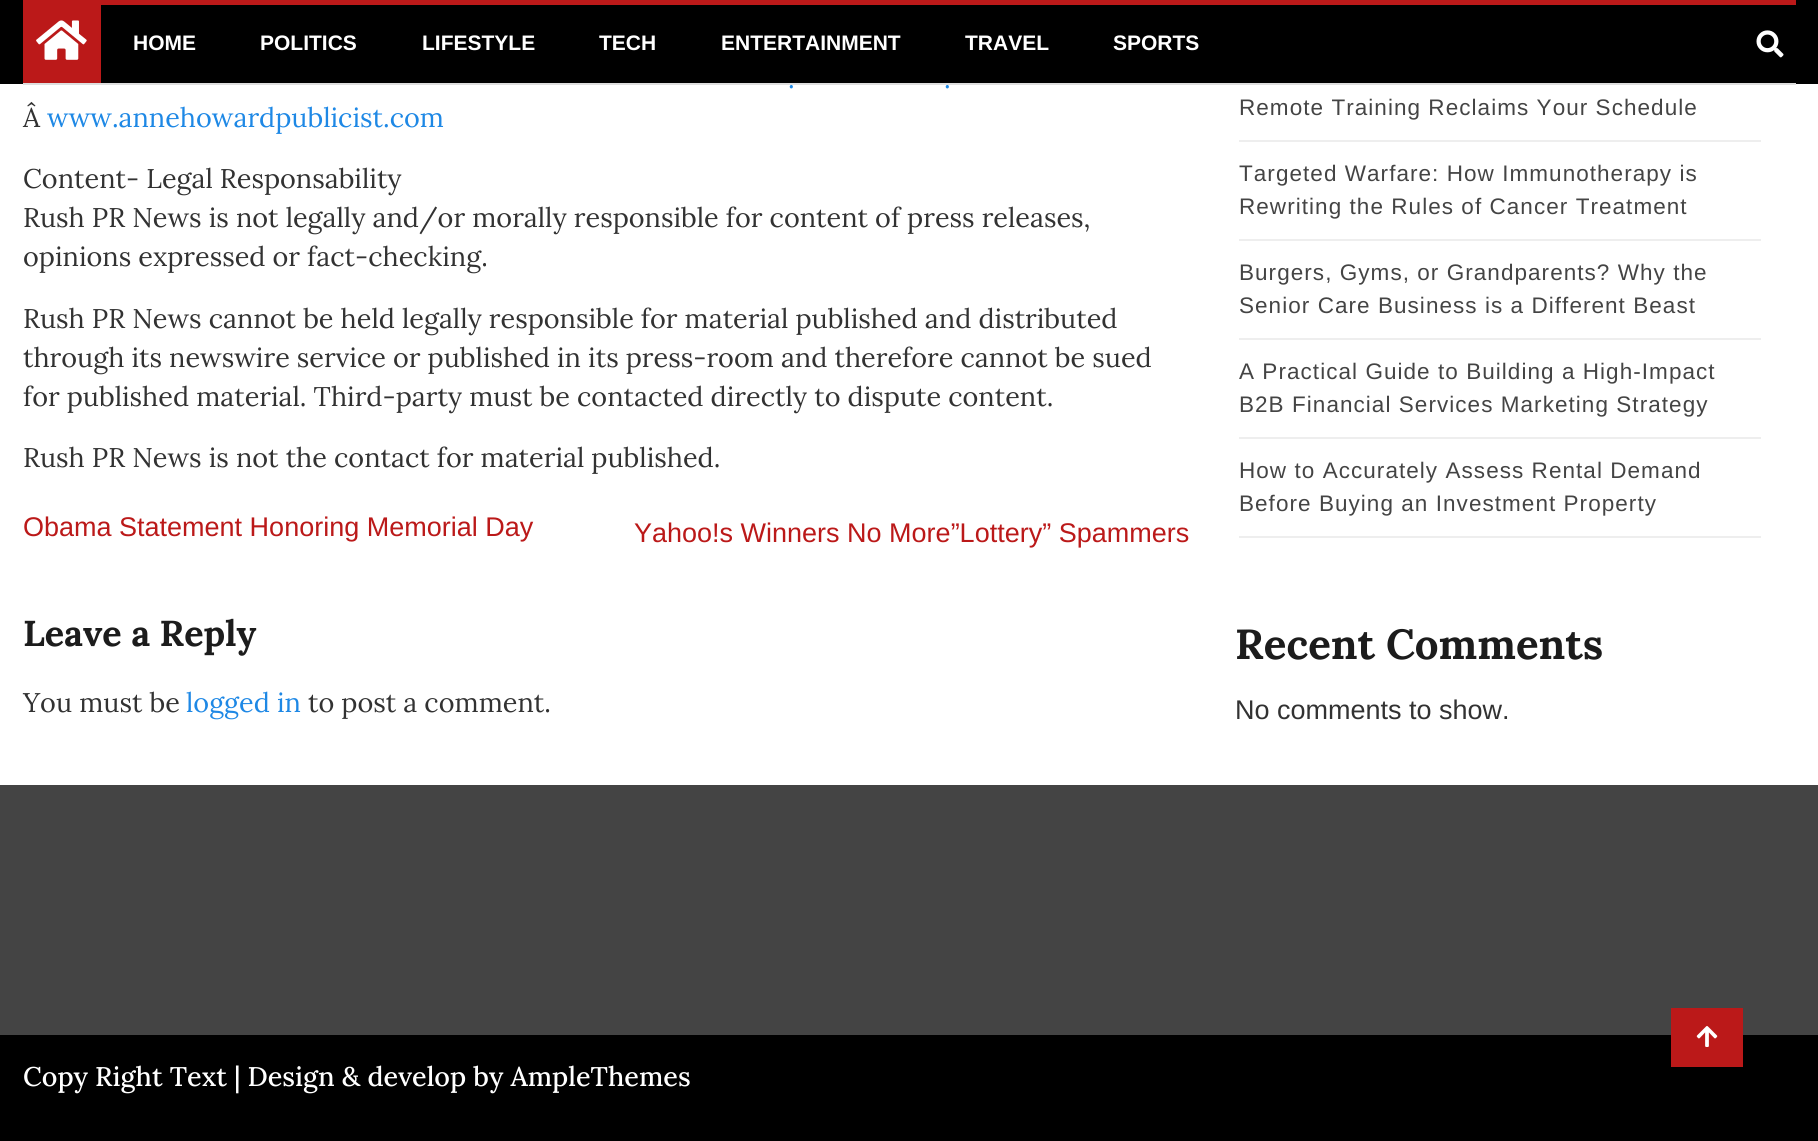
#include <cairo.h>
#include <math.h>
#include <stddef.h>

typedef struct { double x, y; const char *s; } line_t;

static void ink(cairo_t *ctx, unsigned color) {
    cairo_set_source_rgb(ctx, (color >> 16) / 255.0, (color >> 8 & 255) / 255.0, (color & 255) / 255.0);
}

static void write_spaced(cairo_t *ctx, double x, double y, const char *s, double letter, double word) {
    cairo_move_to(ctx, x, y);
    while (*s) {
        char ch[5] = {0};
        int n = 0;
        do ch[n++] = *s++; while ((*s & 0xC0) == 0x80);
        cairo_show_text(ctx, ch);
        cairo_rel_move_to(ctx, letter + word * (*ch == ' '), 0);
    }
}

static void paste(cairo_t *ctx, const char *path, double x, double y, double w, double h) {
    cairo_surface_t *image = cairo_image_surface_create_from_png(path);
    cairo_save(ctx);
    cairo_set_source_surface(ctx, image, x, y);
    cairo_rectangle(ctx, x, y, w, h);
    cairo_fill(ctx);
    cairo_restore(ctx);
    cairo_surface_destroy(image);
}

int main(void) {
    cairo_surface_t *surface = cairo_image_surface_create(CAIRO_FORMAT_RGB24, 1818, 1141);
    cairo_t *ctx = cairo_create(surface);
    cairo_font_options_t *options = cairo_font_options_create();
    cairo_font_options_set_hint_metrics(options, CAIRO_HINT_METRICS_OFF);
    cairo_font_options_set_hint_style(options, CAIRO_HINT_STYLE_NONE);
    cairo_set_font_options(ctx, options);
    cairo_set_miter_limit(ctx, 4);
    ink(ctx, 0xFFFFFF);
    cairo_paint(ctx);
    ink(ctx, 0x000000);
    cairo_rectangle(ctx, 0, 0, 1818, 84);
    cairo_fill(ctx);
    ink(ctx, 0xBB1919);
    cairo_rectangle(ctx, 23, 0, 1773, 5);
    cairo_fill(ctx);
    cairo_select_font_face(ctx, "Lora", CAIRO_FONT_SLANT_NORMAL, CAIRO_FONT_WEIGHT_NORMAL);
    cairo_set_font_size(ctx, 27);
    ink(ctx, 0x1E88E5);
    cairo_move_to(ctx, 788, 88);
    cairo_show_text(ctx, ".");
    cairo_move_to(ctx, 944, 88);
    cairo_show_text(ctx, ".");
    ink(ctx, 0xDEDEDE);
    cairo_rectangle(ctx, 23, 83, 1773, 2);
    cairo_fill(ctx);
    ink(ctx, 0xBB1919);
    cairo_rectangle(ctx, 23, 5, 78, 78);
    cairo_fill(ctx);
    paste(ctx, "media/1.png", 36, 20, 51, 40);
    cairo_select_font_face(ctx, "Liberation Sans", CAIRO_FONT_SLANT_NORMAL, CAIRO_FONT_WEIGHT_BOLD);
    cairo_set_font_size(ctx, 21);
    ink(ctx, 0xFFFFFF);
    {
        static const line_t items[] = {
            {133, 50, "HOME"},
            {260, 50, "POLITICS"},
            {422, 50, "LIFESTYLE"},
            {599, 50, "TECH"},
            {721, 50, "ENTERTAINMENT"},
            {965, 50, "TRAVEL"},
            {1113, 50, "SPORTS"},
        };
        for (size_t i = 0; i < sizeof items / sizeof *items; i++) {
            cairo_move_to(ctx, items[i].x, items[i].y);
            cairo_show_text(ctx, items[i].s);
        }
    }
    paste(ctx, "media/2.png", 1756, 30, 28, 28);
    cairo_select_font_face(ctx, "Lora", CAIRO_FONT_SLANT_NORMAL, CAIRO_FONT_WEIGHT_NORMAL);
    cairo_set_font_size(ctx, 27);
    ink(ctx, 0x323232);
    cairo_move_to(ctx, 23, 127);
    cairo_show_text(ctx, "Â");
    ink(ctx, 0x1E88E5);
    cairo_move_to(ctx, 47, 127);
    cairo_show_text(ctx, "www.annehowardpublicist.com");
    ink(ctx, 0x323232);
    {
        static const line_t items[] = {
            {23, 188, "Content- Legal Responsability"},
            {23, 227, "Rush PR News is not legally and/or morally responsible for content of press releases,"},
            {23, 266, "opinions expressed or fact-checking."},
            {23, 328, "Rush PR News cannot be held legally responsible for material published and distributed"},
            {23, 367, "through its newswire service or published in its press-room and therefore cannot be sued"},
            {23, 406, "for published material. Third-party must be contacted directly to dispute content."},
            {23, 467, "Rush PR News is not the contact for material published."},
        };
        for (size_t i = 0; i < sizeof items / sizeof *items; i++) {
            cairo_move_to(ctx, items[i].x, items[i].y);
            cairo_show_text(ctx, items[i].s);
        }
    }
    cairo_select_font_face(ctx, "Liberation Sans", CAIRO_FONT_SLANT_NORMAL, CAIRO_FONT_WEIGHT_NORMAL);
    ink(ctx, 0xBB1919);
    cairo_move_to(ctx, 23, 536);
    cairo_show_text(ctx, "Obama Statement Honoring Memorial Day");
    cairo_move_to(ctx, 634, 542);
    cairo_show_text(ctx, "Yahoo!s Winners No More”Lottery” Spammers");
    cairo_select_font_face(ctx, "Lora", CAIRO_FONT_SLANT_NORMAL, CAIRO_FONT_WEIGHT_BOLD);
    cairo_set_font_size(ctx, 36);
    ink(ctx, 0x1C1C1C);
    cairo_move_to(ctx, 23, 646);
    cairo_show_text(ctx, "Leave a Reply");
    cairo_select_font_face(ctx, "Lora", CAIRO_FONT_SLANT_NORMAL, CAIRO_FONT_WEIGHT_NORMAL);
    cairo_set_font_size(ctx, 27);
    ink(ctx, 0x323232);
    cairo_move_to(ctx, 23, 712);
    cairo_show_text(ctx, "You must be");
    ink(ctx, 0x1E88E5);
    cairo_move_to(ctx, 186, 712);
    cairo_show_text(ctx, "logged in");
    ink(ctx, 0x323232);
    cairo_move_to(ctx, 308, 712);
    cairo_show_text(ctx, "to post a comment.");
    ink(ctx, 0xEEEEEE);
    cairo_rectangle(ctx, 1239, 140, 522, 2);
    cairo_fill(ctx);
    cairo_select_font_face(ctx, "Liberation Sans", CAIRO_FONT_SLANT_NORMAL, CAIRO_FONT_WEIGHT_NORMAL);
    cairo_set_font_size(ctx, 22.5);
    ink(ctx, 0x444444);
    write_spaced(ctx, 1239, 115, "Remote Training Reclaims Your Schedule", 1.05, 0);
    ink(ctx, 0xEEEEEE);
    cairo_rectangle(ctx, 1239, 239, 522, 2);
    cairo_fill(ctx);
    ink(ctx, 0x444444);
    write_spaced(ctx, 1239, 181, "Targeted Warfare: How Immunotherapy is", 1.05, 0);
    write_spaced(ctx, 1239, 214, "Rewriting the Rules of Cancer Treatment", 1.05, 0);
    ink(ctx, 0xEEEEEE);
    cairo_rectangle(ctx, 1239, 338, 522, 2);
    cairo_fill(ctx);
    ink(ctx, 0x444444);
    write_spaced(ctx, 1239, 280, "Burgers, Gyms, or Grandparents? Why the", 1.05, 0);
    write_spaced(ctx, 1239, 313, "Senior Care Business is a Different Beast", 1.05, 0);
    ink(ctx, 0xEEEEEE);
    cairo_rectangle(ctx, 1239, 437, 522, 2);
    cairo_fill(ctx);
    ink(ctx, 0x444444);
    write_spaced(ctx, 1239, 379, "A Practical Guide to Building a High-Impact", 1.05, 0);
    write_spaced(ctx, 1239, 412, "B2B Financial Services Marketing Strategy", 1.05, 0);
    ink(ctx, 0xEEEEEE);
    cairo_rectangle(ctx, 1239, 536, 522, 2);
    cairo_fill(ctx);
    ink(ctx, 0x444444);
    write_spaced(ctx, 1239, 478, "How to Accurately Assess Rental Demand", 1.05, 0);
    write_spaced(ctx, 1239, 511, "Before Buying an Investment Property", 1.05, 0);
    cairo_select_font_face(ctx, "Lora", CAIRO_FONT_SLANT_NORMAL, CAIRO_FONT_WEIGHT_BOLD);
    cairo_set_font_size(ctx, 42);
    ink(ctx, 0x1C1C1C);
    cairo_move_to(ctx, 1235, 659);
    cairo_show_text(ctx, "Recent Comments");
    cairo_select_font_face(ctx, "Liberation Sans", CAIRO_FONT_SLANT_NORMAL, CAIRO_FONT_WEIGHT_NORMAL);
    cairo_set_font_size(ctx, 27);
    ink(ctx, 0x323232);
    cairo_move_to(ctx, 1235, 719);
    cairo_show_text(ctx, "No comments to show.");
    ink(ctx, 0x444444);
    cairo_rectangle(ctx, 0, 785, 1818, 250);
    cairo_fill(ctx);
    ink(ctx, 0x000000);
    cairo_rectangle(ctx, 0, 1035, 1818, 106);
    cairo_fill(ctx);
    cairo_select_font_face(ctx, "Lora Medium", CAIRO_FONT_SLANT_NORMAL, CAIRO_FONT_WEIGHT_NORMAL);
    ink(ctx, 0xFFFFFF);
    cairo_move_to(ctx, 23, 1086);
    cairo_show_text(ctx, "Copy Right Text | Design & develop by AmpleThemes");
    ink(ctx, 0xBB1919);
    cairo_rectangle(ctx, 1671, 1008, 72, 59);
    cairo_fill(ctx);
    paste(ctx, "media/3.png", 1696, 1026, 22, 21);
    cairo_surface_write_to_png(surface, "image.png");
    cairo_font_options_destroy(options);
    cairo_destroy(ctx);
    cairo_surface_destroy(surface);
    return 0;
}
